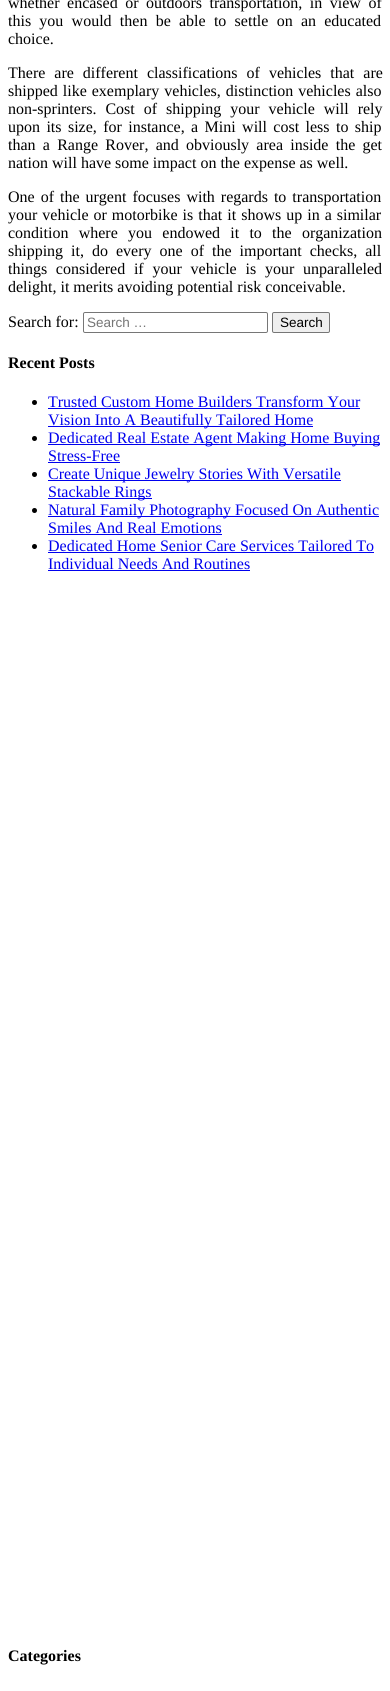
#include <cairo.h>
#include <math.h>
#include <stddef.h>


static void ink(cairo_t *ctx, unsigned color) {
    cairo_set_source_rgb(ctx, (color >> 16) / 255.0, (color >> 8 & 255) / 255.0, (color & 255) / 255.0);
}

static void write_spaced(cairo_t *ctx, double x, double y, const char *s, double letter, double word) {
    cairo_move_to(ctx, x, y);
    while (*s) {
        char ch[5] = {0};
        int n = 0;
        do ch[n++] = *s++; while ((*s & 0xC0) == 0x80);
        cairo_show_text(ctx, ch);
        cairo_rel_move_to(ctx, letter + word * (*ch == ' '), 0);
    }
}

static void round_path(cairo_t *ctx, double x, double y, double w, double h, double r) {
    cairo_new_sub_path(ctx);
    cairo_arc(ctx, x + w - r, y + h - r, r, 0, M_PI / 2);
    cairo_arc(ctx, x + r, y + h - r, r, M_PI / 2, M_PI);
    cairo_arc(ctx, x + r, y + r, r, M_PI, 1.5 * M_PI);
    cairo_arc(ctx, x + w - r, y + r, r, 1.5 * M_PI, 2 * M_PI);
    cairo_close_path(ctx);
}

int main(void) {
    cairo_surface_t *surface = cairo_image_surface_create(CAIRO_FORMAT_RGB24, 390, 1691);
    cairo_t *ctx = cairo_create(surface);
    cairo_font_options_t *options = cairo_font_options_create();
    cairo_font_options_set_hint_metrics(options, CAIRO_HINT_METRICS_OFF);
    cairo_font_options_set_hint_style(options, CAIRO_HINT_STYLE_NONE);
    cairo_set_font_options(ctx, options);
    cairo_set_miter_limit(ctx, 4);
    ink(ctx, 0xFFFFFF);
    cairo_paint(ctx);
    cairo_select_font_face(ctx, "Liberation Serif", CAIRO_FONT_SLANT_NORMAL, CAIRO_FONT_WEIGHT_NORMAL);
    cairo_set_font_size(ctx, 16);
    ink(ctx, 0x000000);
    write_spaced(ctx, 8, 8, "whether encased or outdoors transportation, in view of", 0, 3.5);
    write_spaced(ctx, 8, 26, "this you would then be able to settle on an educated", 0, 4.25);
    cairo_move_to(ctx, 8, 44);
    cairo_show_text(ctx, "choice.");
    write_spaced(ctx, 8, 78, "There are different classifications of vehicles that are", 0, 5);
    write_spaced(ctx, 8, 96, "shipped like exemplary vehicles, distinction vehicles also", 0, 1);
    write_spaced(ctx, 8, 114, "non-sprinters. Cost of shipping your vehicle will rely", 0, 5);
    write_spaced(ctx, 8, 132, "upon its size, for instance, a Mini will cost less to ship", 0, 2.4);
    write_spaced(ctx, 8, 150, "than a Range Rover, and obviously area inside the get", 0, 3.25);
    cairo_move_to(ctx, 8, 168);
    cairo_show_text(ctx, "nation will have some impact on the expense as well.");
    write_spaced(ctx, 8, 202, "One of the urgent focuses with regards to transportation", 0, 2);
    write_spaced(ctx, 8, 220, "your vehicle or motorbike is that it shows up in a similar", 0, 1);
    write_spaced(ctx, 8, 238, "condition where you endowed it to the organization", 0, 6.25);
    write_spaced(ctx, 8, 256, "shipping it, do every one of the important checks, all", 0, 4);
    write_spaced(ctx, 8, 274, "things considered if your vehicle is your unparalleled", 0, 4.75);
    cairo_move_to(ctx, 8, 292);
    cairo_show_text(ctx, "delight, it merits avoiding potential risk conceivable.");
    cairo_move_to(ctx, 8, 327);
    cairo_show_text(ctx, "Search for:");
    round_path(ctx, 83.5, 312.5, 184, 20, 1.5);
    ink(ctx, 0x767676);
    cairo_set_line_width(ctx, 1);
    cairo_stroke(ctx);
    cairo_select_font_face(ctx, "Liberation Sans", CAIRO_FONT_SLANT_NORMAL, CAIRO_FONT_WEIGHT_NORMAL);
    cairo_set_font_size(ctx, 13.5);
    ink(ctx, 0x757575);
    cairo_move_to(ctx, 87, 327);
    cairo_show_text(ctx, "Search …");
    ink(ctx, 0xEFEFEF);
    round_path(ctx, 272.5, 312.5, 57, 20, 1.5);
    cairo_fill_preserve(ctx);
    ink(ctx, 0x767676);
    cairo_stroke(ctx);
    ink(ctx, 0x000000);
    cairo_move_to(ctx, 280, 327);
    cairo_show_text(ctx, "Search");
    cairo_select_font_face(ctx, "Liberation Serif", CAIRO_FONT_SLANT_NORMAL, CAIRO_FONT_WEIGHT_BOLD);
    cairo_set_font_size(ctx, 16);
    cairo_move_to(ctx, 8, 368);
    cairo_show_text(ctx, "Recent Posts");
    cairo_new_path(ctx);
    cairo_arc(ctx, 34.5, 402.5, 2.5, 0, 2 * M_PI);
    cairo_fill(ctx);
    cairo_select_font_face(ctx, "Liberation Serif", CAIRO_FONT_SLANT_NORMAL, CAIRO_FONT_WEIGHT_NORMAL);
    ink(ctx, 0x0000EE);
    cairo_move_to(ctx, 48, 407);
    cairo_show_text(ctx, "Trusted Custom Home Builders Transform Your");
    cairo_rectangle(ctx, 48, 408, 312, 1);
    cairo_fill(ctx);
    cairo_rectangle(ctx, 48, 426, 265, 1);
    cairo_fill(ctx);
    cairo_move_to(ctx, 48, 425);
    cairo_show_text(ctx, "Vision Into A Beautifully Tailored Home");
    ink(ctx, 0x000000);
    cairo_new_path(ctx);
    cairo_arc(ctx, 34.5, 438.5, 2.5, 0, 2 * M_PI);
    cairo_fill(ctx);
    ink(ctx, 0x0000EE);
    cairo_rectangle(ctx, 48, 444, 332, 1);
    cairo_fill(ctx);
    cairo_move_to(ctx, 48, 443);
    cairo_show_text(ctx, "Dedicated Real Estate Agent Making Home Buying");
    cairo_move_to(ctx, 48, 461);
    cairo_show_text(ctx, "Stress-Free");
    cairo_rectangle(ctx, 48, 462, 72, 1);
    cairo_fill(ctx);
    ink(ctx, 0x000000);
    cairo_arc(ctx, 34.5, 474.5, 2.5, 0, 2 * M_PI);
    cairo_fill(ctx);
    ink(ctx, 0x0000EE);
    cairo_rectangle(ctx, 48, 480, 293, 1);
    cairo_fill(ctx);
    cairo_move_to(ctx, 48, 479);
    cairo_show_text(ctx, "Create Unique Jewelry Stories With Versatile");
    cairo_rectangle(ctx, 48, 498, 104, 1);
    cairo_fill(ctx);
    cairo_move_to(ctx, 48, 497);
    cairo_show_text(ctx, "Stackable Rings");
    ink(ctx, 0x000000);
    cairo_new_path(ctx);
    cairo_arc(ctx, 34.5, 510.5, 2.5, 0, 2 * M_PI);
    cairo_fill(ctx);
    ink(ctx, 0x0000EE);
    cairo_rectangle(ctx, 48, 516, 331, 1);
    cairo_fill(ctx);
    cairo_move_to(ctx, 48, 515);
    cairo_show_text(ctx, "Natural Family Photography Focused On Authentic");
    cairo_move_to(ctx, 48, 533);
    cairo_show_text(ctx, "Smiles And Real Emotions");
    cairo_rectangle(ctx, 48, 534, 174, 1);
    cairo_fill(ctx);
    ink(ctx, 0x000000);
    cairo_arc(ctx, 34.5, 546.5, 2.5, 0, 2 * M_PI);
    cairo_fill(ctx);
    ink(ctx, 0x0000EE);
    cairo_move_to(ctx, 48, 551);
    cairo_show_text(ctx, "Dedicated Home Senior Care Services Tailored To");
    cairo_rectangle(ctx, 48, 552, 326, 1);
    cairo_fill(ctx);
    cairo_move_to(ctx, 48, 569);
    cairo_show_text(ctx, "Individual Needs And Routines");
    cairo_rectangle(ctx, 48, 570, 202, 1);
    cairo_fill(ctx);
    cairo_select_font_face(ctx, "Liberation Serif", CAIRO_FONT_SLANT_NORMAL, CAIRO_FONT_WEIGHT_BOLD);
    ink(ctx, 0x000000);
    cairo_move_to(ctx, 8, 1661);
    cairo_show_text(ctx, "Categories");
    cairo_surface_write_to_png(surface, "image.png");
    cairo_font_options_destroy(options);
    cairo_destroy(ctx);
    cairo_surface_destroy(surface);
    return 0;
}
